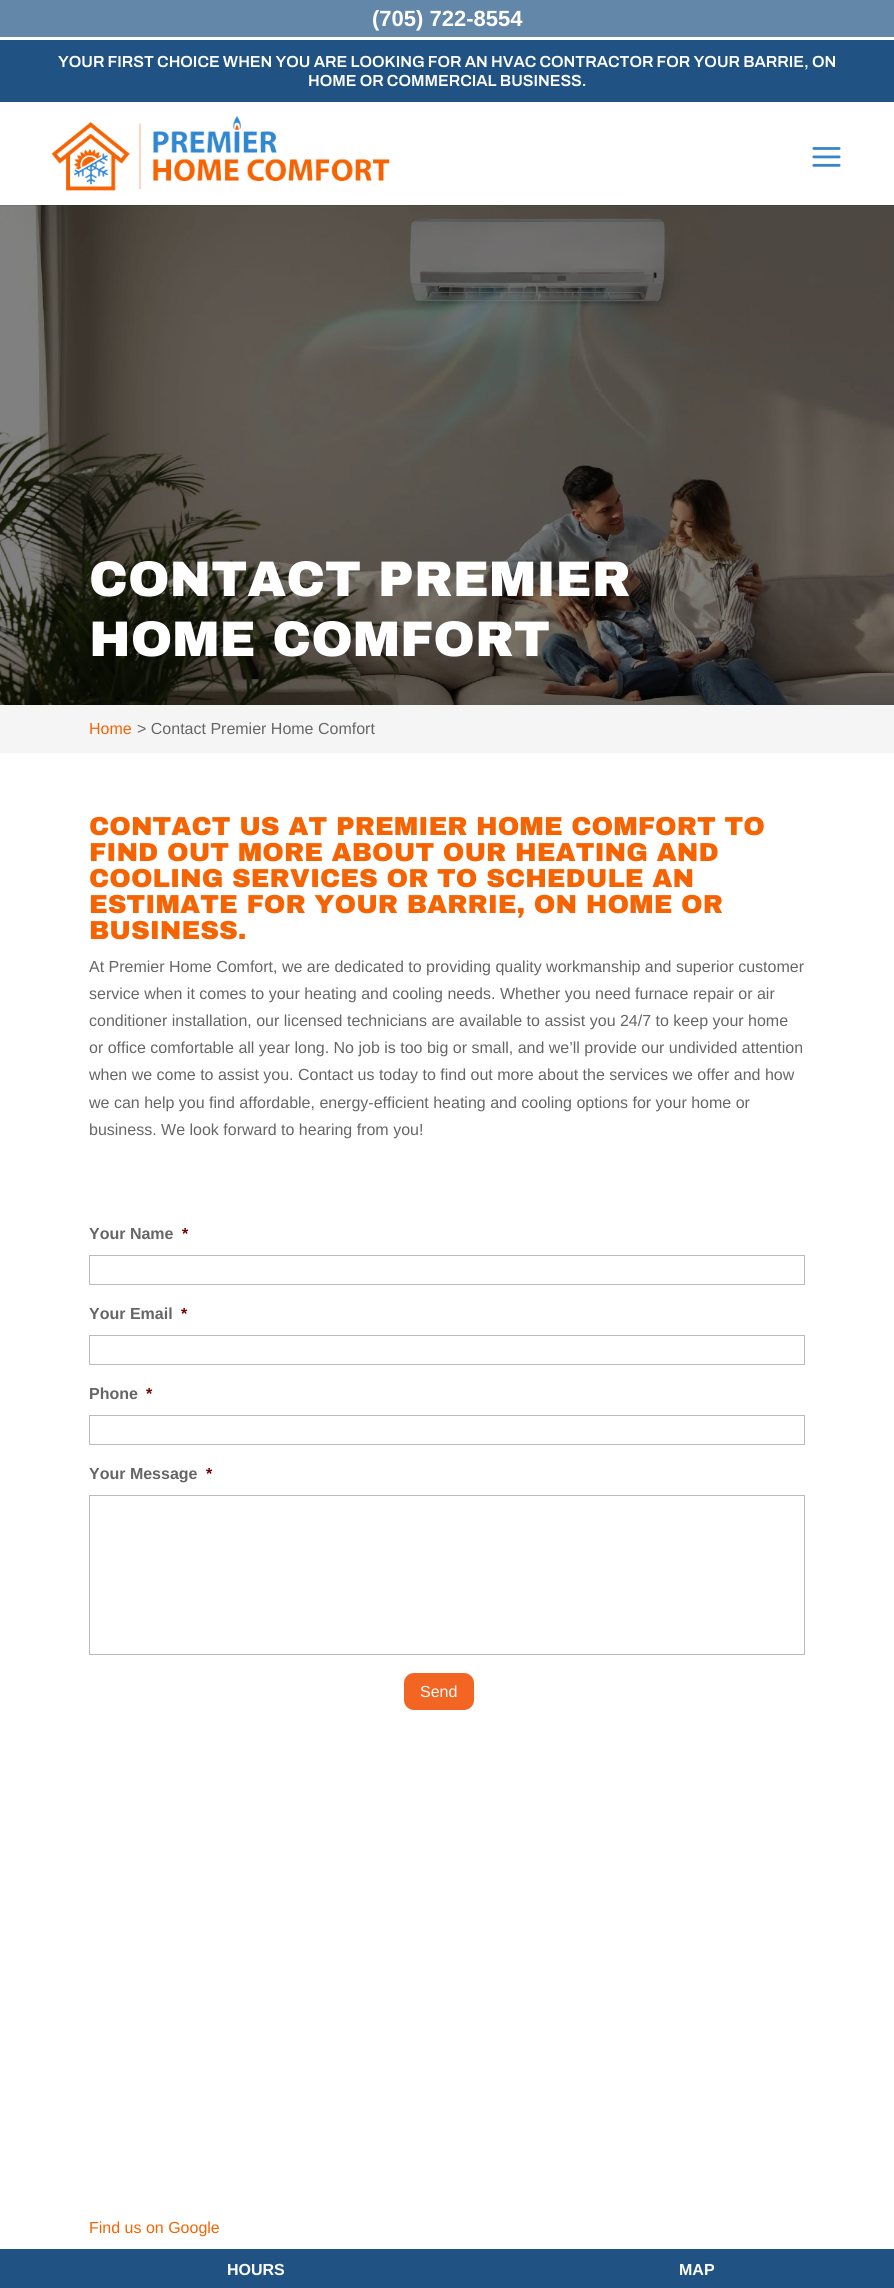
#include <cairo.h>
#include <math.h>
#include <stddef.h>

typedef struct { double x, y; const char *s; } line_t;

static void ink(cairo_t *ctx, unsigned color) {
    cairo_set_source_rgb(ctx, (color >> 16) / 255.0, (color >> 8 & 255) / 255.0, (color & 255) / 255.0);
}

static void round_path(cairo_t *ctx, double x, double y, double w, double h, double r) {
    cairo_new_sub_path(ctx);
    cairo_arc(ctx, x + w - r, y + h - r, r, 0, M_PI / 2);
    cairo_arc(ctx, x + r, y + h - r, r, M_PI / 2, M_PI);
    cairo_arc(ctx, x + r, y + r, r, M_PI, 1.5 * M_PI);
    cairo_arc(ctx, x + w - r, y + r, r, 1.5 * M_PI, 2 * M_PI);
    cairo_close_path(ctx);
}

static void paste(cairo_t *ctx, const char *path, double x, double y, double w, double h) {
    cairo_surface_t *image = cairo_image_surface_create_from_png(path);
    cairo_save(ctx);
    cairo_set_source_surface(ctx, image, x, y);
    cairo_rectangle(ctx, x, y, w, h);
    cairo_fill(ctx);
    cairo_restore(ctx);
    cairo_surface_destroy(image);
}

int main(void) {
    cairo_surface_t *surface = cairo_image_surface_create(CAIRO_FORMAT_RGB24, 894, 2288);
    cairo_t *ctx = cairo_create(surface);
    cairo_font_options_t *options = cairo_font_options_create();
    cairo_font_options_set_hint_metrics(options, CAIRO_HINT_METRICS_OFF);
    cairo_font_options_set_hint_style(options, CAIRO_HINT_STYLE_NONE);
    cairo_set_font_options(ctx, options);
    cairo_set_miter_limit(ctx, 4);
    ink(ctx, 0xFFFFFF);
    cairo_paint(ctx);
    ink(ctx, 0x6387A9);
    cairo_rectangle(ctx, 0, 0, 894, 37);
    cairo_fill(ctx);
    cairo_select_font_face(ctx, "Liberation Sans", CAIRO_FONT_SLANT_NORMAL, CAIRO_FONT_WEIGHT_BOLD);
    cairo_set_font_size(ctx, 22);
    ink(ctx, 0xFFFFFF);
    cairo_move_to(ctx, 372, 26);
    cairo_show_text(ctx, "(705) 722-8554");
    ink(ctx, 0x205384);
    cairo_rectangle(ctx, 0, 2249, 894, 39);
    cairo_fill(ctx);
    cairo_set_font_size(ctx, 16);
    ink(ctx, 0xFFFFFF);
    cairo_move_to(ctx, 227, 2275);
    cairo_show_text(ctx, "HOURS");
    cairo_move_to(ctx, 679, 2275);
    cairo_show_text(ctx, "MAP");
    paste(ctx, "media/1.png", 0, 205, 894, 500);
    cairo_select_font_face(ctx, "Archivo Black Black", CAIRO_FONT_SLANT_NORMAL, CAIRO_FONT_WEIGHT_NORMAL);
    cairo_set_font_size(ctx, 50);
    cairo_move_to(ctx, 89, 596);
    cairo_show_text(ctx, "CONTACT PREMIER");
    cairo_move_to(ctx, 89, 656);
    cairo_show_text(ctx, "HOME COMFORT");
    ink(ctx, 0xF5F5F5);
    cairo_rectangle(ctx, 0, 705, 894, 48);
    cairo_fill(ctx);
    cairo_select_font_face(ctx, "Liberation Sans", CAIRO_FONT_SLANT_NORMAL, CAIRO_FONT_WEIGHT_NORMAL);
    cairo_set_font_size(ctx, 16);
    ink(ctx, 0xF66303);
    cairo_move_to(ctx, 89, 734);
    cairo_show_text(ctx, "Home");
    ink(ctx, 0x666666);
    cairo_move_to(ctx, 137, 734);
    cairo_show_text(ctx, "> Contact Premier Home Comfort");
    cairo_select_font_face(ctx, "Archivo Black Black", CAIRO_FONT_SLANT_NORMAL, CAIRO_FONT_WEIGHT_NORMAL);
    cairo_set_font_size(ctx, 26);
    ink(ctx, 0xF66303);
    {
        static const line_t items[] = {
            {89, 835, "CONTACT US AT PREMIER HOME COMFORT TO"},
            {89, 861, "FIND OUT MORE ABOUT OUR HEATING AND"},
            {89, 887, "COOLING SERVICES OR TO SCHEDULE AN"},
            {89, 913, "ESTIMATE FOR YOUR BARRIE, ON HOME OR"},
            {89, 939, "BUSINESS."},
        };
        for (size_t i = 0; i < sizeof items / sizeof *items; i++) {
            cairo_move_to(ctx, items[i].x, items[i].y);
            cairo_show_text(ctx, items[i].s);
        }
    }
    cairo_select_font_face(ctx, "Liberation Sans", CAIRO_FONT_SLANT_NORMAL, CAIRO_FONT_WEIGHT_NORMAL);
    cairo_set_font_size(ctx, 16);
    ink(ctx, 0x666666);
    {
        static const line_t items[] = {
            {89, 972, "At Premier Home Comfort, we are dedicated to providing quality workmanship and superior customer"},
            {89, 999, "service when it comes to your heating and cooling needs. Whether you need furnace repair or air"},
            {89, 1026, "conditioner installation, our licensed technicians are available to assist you 24/7 to keep your home"},
            {89, 1053, "or office comfortable all year long. No job is too big or small, and we’ll provide our undivided attention"},
            {89, 1080, "when we come to assist you. Contact us today to find out more about the services we offer and how"},
            {89, 1108, "we can help you find affordable, energy-efficient heating and cooling options for your home or"},
            {89, 1135, "business. We look forward to hearing from you!"},
        };
        for (size_t i = 0; i < sizeof items / sizeof *items; i++) {
            cairo_move_to(ctx, items[i].x, items[i].y);
            cairo_show_text(ctx, items[i].s);
        }
    }
    cairo_select_font_face(ctx, "Liberation Sans", CAIRO_FONT_SLANT_NORMAL, CAIRO_FONT_WEIGHT_BOLD);
    cairo_move_to(ctx, 89, 1239);
    cairo_show_text(ctx, "Your Name");
    ink(ctx, 0x790000);
    cairo_move_to(ctx, 182, 1239);
    cairo_show_text(ctx, "*");
    cairo_rectangle(ctx, 89.5, 1255.5, 715, 29);
    ink(ctx, 0xBBBBBB);
    cairo_set_line_width(ctx, 1);
    cairo_stroke(ctx);
    ink(ctx, 0x666666);
    cairo_move_to(ctx, 89, 1319);
    cairo_show_text(ctx, "Your Email");
    ink(ctx, 0x790000);
    cairo_move_to(ctx, 181, 1319);
    cairo_show_text(ctx, "*");
    cairo_rectangle(ctx, 89.5, 1335.5, 715, 29);
    ink(ctx, 0xBBBBBB);
    cairo_stroke(ctx);
    ink(ctx, 0x666666);
    cairo_move_to(ctx, 89, 1399);
    cairo_show_text(ctx, "Phone");
    ink(ctx, 0x790000);
    cairo_move_to(ctx, 146, 1399);
    cairo_show_text(ctx, "*");
    cairo_rectangle(ctx, 89.5, 1415.5, 715, 29);
    ink(ctx, 0xBBBBBB);
    cairo_stroke(ctx);
    ink(ctx, 0x666666);
    cairo_move_to(ctx, 89, 1479);
    cairo_show_text(ctx, "Your Message");
    ink(ctx, 0x790000);
    cairo_move_to(ctx, 206, 1479);
    cairo_show_text(ctx, "*");
    cairo_rectangle(ctx, 89.5, 1495.5, 715, 159);
    ink(ctx, 0xBBBBBB);
    cairo_stroke(ctx);
    ink(ctx, 0xF26522);
    round_path(ctx, 404, 1673, 70, 37, 10);
    cairo_fill(ctx);
    cairo_select_font_face(ctx, "Liberation Sans", CAIRO_FONT_SLANT_NORMAL, CAIRO_FONT_WEIGHT_NORMAL);
    ink(ctx, 0xFFFFFF);
    cairo_move_to(ctx, 420, 1697);
    cairo_show_text(ctx, "Send");
    ink(ctx, 0xF66303);
    cairo_move_to(ctx, 89, 2233);
    cairo_show_text(ctx, "Find us on Google");
    ink(ctx, 0x205384);
    cairo_rectangle(ctx, 0, 40, 894, 62);
    cairo_fill(ctx);
    cairo_select_font_face(ctx, "Archivo SemiBold", CAIRO_FONT_SLANT_NORMAL, CAIRO_FONT_WEIGHT_NORMAL);
    ink(ctx, 0xFFFFFF);
    cairo_move_to(ctx, 58, 67);
    cairo_show_text(ctx, "YOUR FIRST CHOICE WHEN YOU ARE LOOKING FOR AN HVAC CONTRACTOR FOR YOUR BARRIE, ON");
    cairo_move_to(ctx, 308, 86);
    cairo_show_text(ctx, "HOME OR COMMERCIAL BUSINESS.");
    cairo_set_source_rgba(ctx, 0, 0, 0, 0.1);
    cairo_rectangle(ctx, 0, 205, 894, 1);
    cairo_fill(ctx);
    paste(ctx, "media/2.png", 51, 115, 339, 76);
    paste(ctx, "media/3.png", 812, 147, 29, 20);
    cairo_surface_write_to_png(surface, "image.png");
    cairo_font_options_destroy(options);
    cairo_destroy(ctx);
    cairo_surface_destroy(surface);
    return 0;
}
